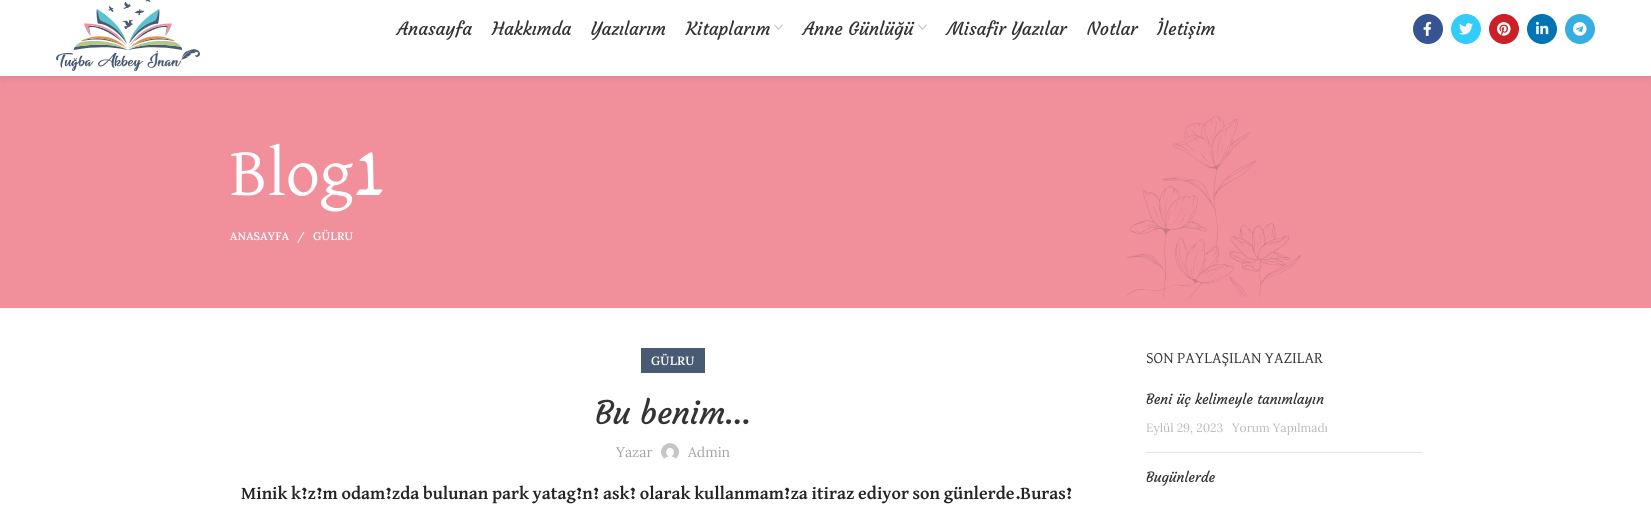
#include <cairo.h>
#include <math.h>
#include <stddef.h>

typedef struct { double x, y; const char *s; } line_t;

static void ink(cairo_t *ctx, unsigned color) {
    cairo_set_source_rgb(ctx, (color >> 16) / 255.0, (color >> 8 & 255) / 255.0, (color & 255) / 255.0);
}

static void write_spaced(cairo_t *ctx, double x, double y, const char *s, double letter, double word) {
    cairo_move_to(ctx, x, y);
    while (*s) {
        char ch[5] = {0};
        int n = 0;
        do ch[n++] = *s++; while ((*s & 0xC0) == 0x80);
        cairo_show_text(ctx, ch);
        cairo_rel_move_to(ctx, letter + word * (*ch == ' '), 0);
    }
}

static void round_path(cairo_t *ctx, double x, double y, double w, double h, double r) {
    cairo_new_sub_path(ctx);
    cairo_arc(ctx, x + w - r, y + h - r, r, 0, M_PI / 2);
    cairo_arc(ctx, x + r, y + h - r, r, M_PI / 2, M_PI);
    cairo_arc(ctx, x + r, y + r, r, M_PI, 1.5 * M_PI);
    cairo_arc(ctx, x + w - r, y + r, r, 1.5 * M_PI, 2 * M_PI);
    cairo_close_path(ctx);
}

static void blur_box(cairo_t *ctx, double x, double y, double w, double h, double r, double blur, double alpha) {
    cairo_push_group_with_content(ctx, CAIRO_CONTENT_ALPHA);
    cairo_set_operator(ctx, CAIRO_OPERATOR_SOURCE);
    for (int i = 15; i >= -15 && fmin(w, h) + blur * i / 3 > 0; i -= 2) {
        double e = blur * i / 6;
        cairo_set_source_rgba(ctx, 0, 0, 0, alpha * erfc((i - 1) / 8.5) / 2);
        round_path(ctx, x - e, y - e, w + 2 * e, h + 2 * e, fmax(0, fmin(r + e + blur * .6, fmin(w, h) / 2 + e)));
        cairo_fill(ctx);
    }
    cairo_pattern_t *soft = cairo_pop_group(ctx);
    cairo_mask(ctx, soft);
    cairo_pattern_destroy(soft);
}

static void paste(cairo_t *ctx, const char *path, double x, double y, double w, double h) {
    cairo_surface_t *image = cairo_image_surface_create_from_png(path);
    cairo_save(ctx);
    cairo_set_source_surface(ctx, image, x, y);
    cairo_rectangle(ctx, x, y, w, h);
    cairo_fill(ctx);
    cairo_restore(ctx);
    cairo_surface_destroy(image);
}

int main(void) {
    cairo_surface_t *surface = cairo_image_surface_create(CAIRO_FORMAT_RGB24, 1651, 505);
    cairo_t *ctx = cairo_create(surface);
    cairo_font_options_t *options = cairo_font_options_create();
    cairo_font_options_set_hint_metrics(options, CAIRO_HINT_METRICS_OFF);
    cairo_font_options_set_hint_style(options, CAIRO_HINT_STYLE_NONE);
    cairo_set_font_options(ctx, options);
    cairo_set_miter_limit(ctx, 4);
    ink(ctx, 0xFFFFFF);
    cairo_paint(ctx);
    paste(ctx, "media/8.png", 0, 76, 1651, 232);
    ink(ctx, 0x000000);
    blur_box(ctx, 0, -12, 1651, 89, 0, 4, 0.1);
    ink(ctx, 0xFFFFFF);
    cairo_rectangle(ctx, 0, 0, 1651, 76);
    cairo_fill(ctx);
    paste(ctx, "media/1.png", 56, 0, 144, 71);
    cairo_select_font_face(ctx, "Courgette", CAIRO_FONT_SLANT_NORMAL, CAIRO_FONT_WEIGHT_NORMAL);
    cairo_set_font_size(ctx, 18);
    ink(ctx, 0x333333);
    {
        static const line_t items[] = {
            {397, 35, "Anasayfa"},
            {492, 35, "Hakkımda"},
            {591, 35, "Yazılarım"},
            {686, 35, "Kitaplarım"},
        };
        for (size_t i = 0; i < sizeof items / sizeof *items; i++) {
            cairo_move_to(ctx, items[i].x, items[i].y);
            cairo_show_text(ctx, items[i].s);
        }
    }
    paste(ctx, "media/2.png", 774, 24, 9, 6);
    cairo_move_to(ctx, 803, 35);
    cairo_show_text(ctx, "Anne Günlüğü");
    paste(ctx, "media/2.png", 918, 24, 9, 6);
    {
        static const line_t items[] = {
            {947, 35, "Misafir Yazılar"},
            {1087, 35, "Notlar"},
            {1157, 35, "İletişim"},
        };
        for (size_t i = 0; i < sizeof items / sizeof *items; i++) {
            cairo_move_to(ctx, items[i].x, items[i].y);
            cairo_show_text(ctx, items[i].s);
        }
    }
    ink(ctx, 0x365493);
    cairo_new_path(ctx);
    cairo_arc(ctx, 1428, 29, 15, 0, 2 * M_PI);
    cairo_fill(ctx);
    paste(ctx, "media/3.png", 1423, 21, 9, 15);
    ink(ctx, 0x33CCFF);
    cairo_arc(ctx, 1466, 29, 15, 0, 2 * M_PI);
    cairo_fill(ctx);
    paste(ctx, "media/4.png", 1459, 23, 14, 12);
    ink(ctx, 0xCB2027);
    cairo_arc(ctx, 1504, 29, 15, 0, 2 * M_PI);
    cairo_fill(ctx);
    paste(ctx, "media/5.png", 1497, 22, 14, 14);
    ink(ctx, 0x0274B3);
    cairo_arc(ctx, 1542, 29, 15, 0, 2 * M_PI);
    cairo_fill(ctx);
    paste(ctx, "media/6.png", 1536, 21, 13, 14);
    ink(ctx, 0x37AEE2);
    cairo_arc(ctx, 1580, 29, 15, 0, 2 * M_PI);
    cairo_fill(ctx);
    paste(ctx, "media/7.png", 1573, 22, 14, 14);
    cairo_select_font_face(ctx, "David Libre", CAIRO_FONT_SLANT_NORMAL, CAIRO_FONT_WEIGHT_NORMAL);
    cairo_set_font_size(ctx, 68);
    ink(ctx, 0xFFFFFF);
    cairo_move_to(ctx, 230, 195);
    cairo_show_text(ctx, "Blog1");
    cairo_select_font_face(ctx, "Lora SemiBold", CAIRO_FONT_SLANT_NORMAL, CAIRO_FONT_WEIGHT_NORMAL);
    cairo_set_font_size(ctx, 11);
    {
        static const line_t items[] = {
            {230, 240, "ANASAYFA"},
            {297, 240, "/"},
            {313, 240, "GÜLRU"},
        };
        for (size_t i = 0; i < sizeof items / sizeof *items; i++) {
            write_spaced(ctx, items[i].x, items[i].y, items[i].s, 0.25, 0);
        }
    }
    ink(ctx, 0x495B74);
    cairo_rectangle(ctx, 641, 348, 64, 25);
    cairo_fill(ctx);
    cairo_set_font_size(ctx, 12);
    ink(ctx, 0xFFFFFF);
    write_spaced(ctx, 651, 365, "GÜLRU", 0.25, 0);
    cairo_select_font_face(ctx, "Courgette", CAIRO_FONT_SLANT_NORMAL, CAIRO_FONT_WEIGHT_NORMAL);
    cairo_set_font_size(ctx, 32);
    ink(ctx, 0x333333);
    cairo_move_to(ctx, 595, 424);
    cairo_show_text(ctx, "Bu benim…");
    cairo_select_font_face(ctx, "Lora", CAIRO_FONT_SLANT_NORMAL, CAIRO_FONT_WEIGHT_NORMAL);
    cairo_set_font_size(ctx, 14);
    ink(ctx, 0xA4A4A4);
    cairo_move_to(ctx, 616, 457);
    cairo_show_text(ctx, "Yazar");
    paste(ctx, "media/9.png", 661, 443, 18, 16);
    cairo_move_to(ctx, 688, 457);
    cairo_show_text(ctx, "Admin");
    cairo_select_font_face(ctx, "David Libre", CAIRO_FONT_SLANT_NORMAL, CAIRO_FONT_WEIGHT_BOLD);
    cairo_set_font_size(ctx, 18);
    ink(ctx, 0x242424);
    cairo_move_to(ctx, 241, 499);
    cairo_show_text(ctx, "Minik k?z?m odam?zda bulunan park yatag?n? ask? olarak kullanmam?za itiraz ediyor son günlerde.Buras?");
    cairo_select_font_face(ctx, "David Libre", CAIRO_FONT_SLANT_NORMAL, CAIRO_FONT_WEIGHT_NORMAL);
    cairo_set_font_size(ctx, 16);
    ink(ctx, 0x333333);
    cairo_move_to(ctx, 1146, 363);
    cairo_show_text(ctx, "SON PAYLAŞILAN YAZILAR");
    ink(ctx, 0xE4E4E4);
    cairo_rectangle(ctx, 1146, 452, 276, 1);
    cairo_fill(ctx);
    cairo_select_font_face(ctx, "Courgette", CAIRO_FONT_SLANT_NORMAL, CAIRO_FONT_WEIGHT_NORMAL);
    cairo_set_font_size(ctx, 14);
    ink(ctx, 0x333333);
    cairo_move_to(ctx, 1146, 404);
    cairo_show_text(ctx, "Beni üç kelimeyle tanımlayın");
    cairo_select_font_face(ctx, "Lora", CAIRO_FONT_SLANT_NORMAL, CAIRO_FONT_WEIGHT_NORMAL);
    cairo_set_font_size(ctx, 12);
    ink(ctx, 0xBBBBBB);
    cairo_move_to(ctx, 1146, 432);
    cairo_show_text(ctx, "Eylül 29, 2023");
    cairo_move_to(ctx, 1232, 432);
    cairo_show_text(ctx, "Yorum Yapılmadı");
    cairo_select_font_face(ctx, "Courgette", CAIRO_FONT_SLANT_NORMAL, CAIRO_FONT_WEIGHT_NORMAL);
    cairo_set_font_size(ctx, 14);
    ink(ctx, 0x333333);
    cairo_move_to(ctx, 1146, 482);
    cairo_show_text(ctx, "Bugünlerde");
    cairo_surface_write_to_png(surface, "image.png");
    cairo_font_options_destroy(options);
    cairo_destroy(ctx);
    cairo_surface_destroy(surface);
    return 0;
}
